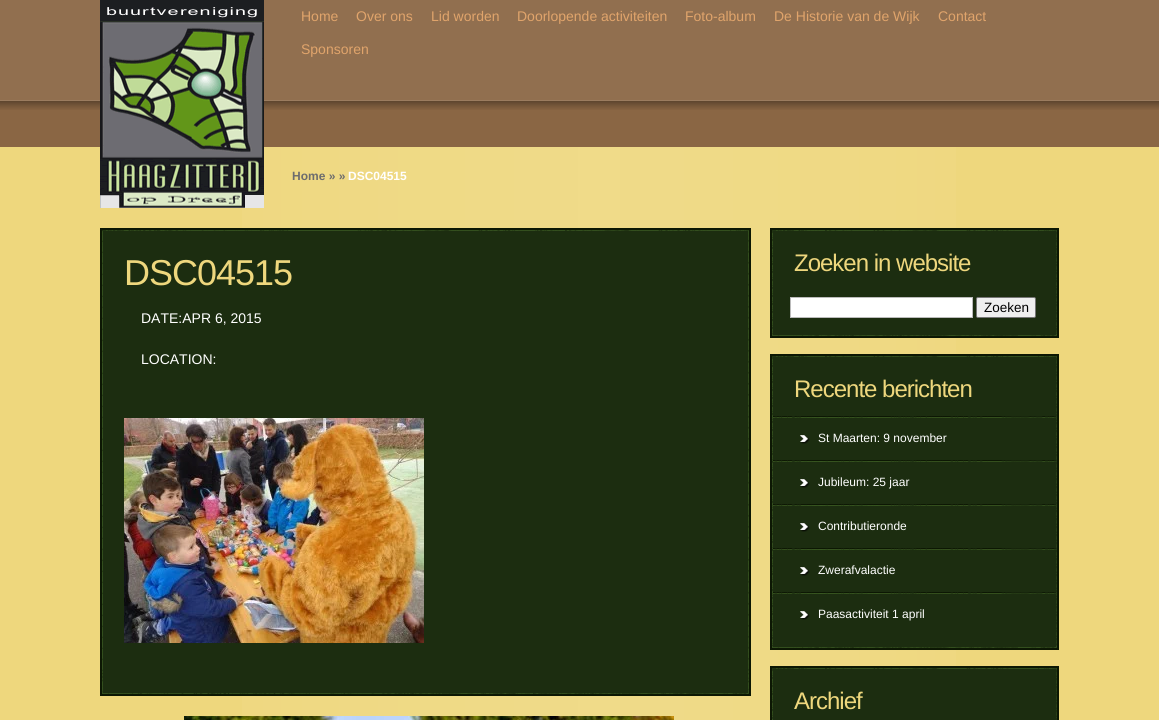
#include <cairo.h>
#include <math.h>
#include <stddef.h>

typedef struct { double x, y; const char *s; } line_t;

static void ink(cairo_t *ctx, unsigned color) {
    cairo_set_source_rgb(ctx, (color >> 16) / 255.0, (color >> 8 & 255) / 255.0, (color & 255) / 255.0);
}

static void write_spaced(cairo_t *ctx, double x, double y, const char *s, double letter, double word) {
    cairo_move_to(ctx, x, y);
    while (*s) {
        char ch[5] = {0};
        int n = 0;
        do ch[n++] = *s++; while ((*s & 0xC0) == 0x80);
        cairo_show_text(ctx, ch);
        cairo_rel_move_to(ctx, letter + word * (*ch == ' '), 0);
    }
}

static void round_path(cairo_t *ctx, double x, double y, double w, double h, double r) {
    cairo_new_sub_path(ctx);
    cairo_arc(ctx, x + w - r, y + h - r, r, 0, M_PI / 2);
    cairo_arc(ctx, x + r, y + h - r, r, M_PI / 2, M_PI);
    cairo_arc(ctx, x + r, y + r, r, M_PI, 1.5 * M_PI);
    cairo_arc(ctx, x + w - r, y + r, r, 1.5 * M_PI, 2 * M_PI);
    cairo_close_path(ctx);
}

static void paste(cairo_t *ctx, const char *path, double x, double y, double w, double h) {
    cairo_surface_t *image = cairo_image_surface_create_from_png(path);
    cairo_save(ctx);
    cairo_set_source_surface(ctx, image, x, y);
    cairo_rectangle(ctx, x, y, w, h);
    cairo_fill(ctx);
    cairo_restore(ctx);
    cairo_surface_destroy(image);
}

int main(void) {
    cairo_surface_t *surface = cairo_image_surface_create(CAIRO_FORMAT_RGB24, 1159, 720);
    cairo_t *ctx = cairo_create(surface);
    cairo_font_options_t *options = cairo_font_options_create();
    cairo_font_options_set_hint_metrics(options, CAIRO_HINT_METRICS_OFF);
    cairo_font_options_set_hint_style(options, CAIRO_HINT_STYLE_NONE);
    cairo_set_font_options(ctx, options);
    cairo_set_miter_limit(ctx, 4);
    ink(ctx, 0xEED77D);
    cairo_paint(ctx);
    paste(ctx, "media/1.png", 242, 147, 714, 573);
    ink(ctx, 0x8A6644);
    cairo_rectangle(ctx, 0, 0, 1159, 147);
    cairo_fill(ctx);
    paste(ctx, "media/2.png", 0, 0, 1159, 110);
    paste(ctx, "media/3.png", 100, 0, 164, 208);
    cairo_select_font_face(ctx, "Liberation Sans", CAIRO_FONT_SLANT_NORMAL, CAIRO_FONT_WEIGHT_NORMAL);
    cairo_set_font_size(ctx, 14);
    ink(ctx, 0xE0A46B);
    {
        static const line_t items[] = {
            {301, 21, "Home"},
            {356, 21, "Over ons"},
            {431, 21, "Lid worden"},
            {517, 21, "Doorlopende activiteiten"},
            {685, 21, "Foto-album"},
            {774, 21, "De Historie van de Wijk"},
            {938, 21, "Contact"},
            {301, 54, "Sponsoren"},
        };
        for (size_t i = 0; i < sizeof items / sizeof *items; i++) {
            cairo_move_to(ctx, items[i].x, items[i].y);
            cairo_show_text(ctx, items[i].s);
        }
    }
    cairo_select_font_face(ctx, "Liberation Sans", CAIRO_FONT_SLANT_NORMAL, CAIRO_FONT_WEIGHT_BOLD);
    cairo_set_font_size(ctx, 12);
    ink(ctx, 0x6C6C6D);
    cairo_move_to(ctx, 292, 180);
    cairo_show_text(ctx, "Home » »");
    ink(ctx, 0xFFFFFF);
    cairo_move_to(ctx, 348, 180);
    cairo_show_text(ctx, "DSC04515");
    paste(ctx, "media/4.png", 100, 673, 651, 23);
    paste(ctx, "media/5.png", 100, 228, 651, 4);
    paste(ctx, "media/6.png", 100, 232, 651, 441);
    cairo_select_font_face(ctx, "Liberation Sans", CAIRO_FONT_SLANT_NORMAL, CAIRO_FONT_WEIGHT_NORMAL);
    cairo_set_font_size(ctx, 36);
    ink(ctx, 0xEED77D);
    write_spaced(ctx, 124, 285, "DSC04515", -1, 0);
    cairo_set_font_size(ctx, 14);
    ink(ctx, 0xFFFFFF);
    cairo_move_to(ctx, 141, 323);
    cairo_show_text(ctx, "DATE:APR 6, 2015");
    cairo_move_to(ctx, 141, 364);
    cairo_show_text(ctx, "LOCATION:");
    paste(ctx, "media/7.png", 124, 418, 300, 225);
    paste(ctx, "media/8.png", 184, 716, 490, 4);
    paste(ctx, "media/9.png", 770, 334, 289, 4);
    paste(ctx, "media/10.png", 770, 228, 289, 3);
    paste(ctx, "media/11.png", 770, 231, 289, 103);
    cairo_set_font_size(ctx, 24);
    ink(ctx, 0xEED77D);
    write_spaced(ctx, 794, 271, "Zoeken in website", -1, 0);
    ink(ctx, 0xFFFFFF);
    cairo_rectangle(ctx, 790.5, 297.5, 182, 20);
    cairo_fill_preserve(ctx);
    ink(ctx, 0xBBBBBB);
    cairo_set_line_width(ctx, 1);
    cairo_stroke(ctx);
    ink(ctx, 0xEFEFEF);
    round_path(ctx, 976.5, 297.5, 59, 20, 1.5);
    cairo_fill_preserve(ctx);
    ink(ctx, 0x767676);
    cairo_stroke(ctx);
    cairo_set_font_size(ctx, 13.5);
    ink(ctx, 0x000000);
    cairo_move_to(ctx, 984, 312);
    cairo_show_text(ctx, "Zoeken");
    paste(ctx, "media/9.png", 770, 646, 289, 4);
    paste(ctx, "media/10.png", 770, 354, 289, 3);
    paste(ctx, "media/12.png", 770, 357, 289, 289);
    cairo_set_font_size(ctx, 24);
    ink(ctx, 0xEED77D);
    write_spaced(ctx, 794, 397, "Recente berichten", -1, 0);
    paste(ctx, "media/13.png", 773, 416, 283, 2);
    paste(ctx, "media/14.png", 800, 435, 10, 9);
    cairo_set_font_size(ctx, 12);
    ink(ctx, 0xFFFFFF);
    cairo_move_to(ctx, 818, 442);
    cairo_show_text(ctx, "St Maarten: 9 november");
    paste(ctx, "media/13.png", 773, 460, 283, 2);
    paste(ctx, "media/14.png", 800, 479, 10, 9);
    cairo_move_to(ctx, 818, 486);
    cairo_show_text(ctx, "Jubileum: 25 jaar");
    paste(ctx, "media/13.png", 773, 504, 283, 2);
    paste(ctx, "media/14.png", 800, 523, 10, 9);
    cairo_move_to(ctx, 818, 530);
    cairo_show_text(ctx, "Contributieronde");
    paste(ctx, "media/13.png", 773, 548, 283, 2);
    paste(ctx, "media/14.png", 800, 567, 10, 9);
    cairo_move_to(ctx, 818, 574);
    cairo_show_text(ctx, "Zwerafvalactie");
    paste(ctx, "media/13.png", 773, 592, 283, 2);
    paste(ctx, "media/14.png", 800, 611, 10, 9);
    cairo_move_to(ctx, 818, 618);
    cairo_show_text(ctx, "Paasactiviteit 1 april");
    paste(ctx, "media/10.png", 770, 666, 289, 3);
    paste(ctx, "media/15.png", 770, 669, 289, 51);
    cairo_set_font_size(ctx, 24);
    ink(ctx, 0xEED77D);
    write_spaced(ctx, 794, 709, "Archief", -1, 0);
    cairo_surface_write_to_png(surface, "image.png");
    cairo_font_options_destroy(options);
    cairo_destroy(ctx);
    cairo_surface_destroy(surface);
    return 0;
}
